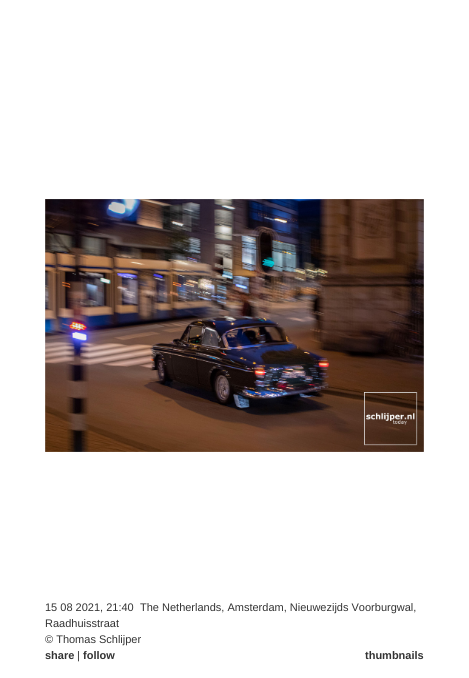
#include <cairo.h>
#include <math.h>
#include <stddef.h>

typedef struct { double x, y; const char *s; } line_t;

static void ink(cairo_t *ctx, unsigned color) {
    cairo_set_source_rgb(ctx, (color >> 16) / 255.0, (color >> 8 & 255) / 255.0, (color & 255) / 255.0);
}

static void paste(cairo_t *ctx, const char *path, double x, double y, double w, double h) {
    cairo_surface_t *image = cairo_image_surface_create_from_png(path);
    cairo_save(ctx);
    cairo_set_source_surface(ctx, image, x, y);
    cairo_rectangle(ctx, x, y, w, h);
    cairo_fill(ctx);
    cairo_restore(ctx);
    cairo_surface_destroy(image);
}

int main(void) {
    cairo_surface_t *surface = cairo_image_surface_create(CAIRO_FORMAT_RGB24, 469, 678);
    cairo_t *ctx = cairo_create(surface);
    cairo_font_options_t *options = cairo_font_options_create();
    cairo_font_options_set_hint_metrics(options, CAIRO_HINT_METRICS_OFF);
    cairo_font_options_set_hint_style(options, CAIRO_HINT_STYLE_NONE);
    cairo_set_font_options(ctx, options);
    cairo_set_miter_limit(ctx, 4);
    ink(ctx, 0xFFFFFF);
    cairo_paint(ctx);
    paste(ctx, "media/1.png", 45, 199, 379, 253);
    cairo_select_font_face(ctx, "Liberation Sans", CAIRO_FONT_SLANT_NORMAL, CAIRO_FONT_WEIGHT_NORMAL);
    cairo_set_font_size(ctx, 11);
    ink(ctx, 0x333333);
    {
        static const line_t items[] = {
            {45, 611, "15 08 2021, 21:40"},
            {140, 611, "The Netherlands, Amsterdam, Nieuwezijds Voorburgwal,"},
            {45, 627, "Raadhuisstraat"},
            {45, 643, "© Thomas Schlijper"},
        };
        for (size_t i = 0; i < sizeof items / sizeof *items; i++) {
            cairo_move_to(ctx, items[i].x, items[i].y);
            cairo_show_text(ctx, items[i].s);
        }
    }
    cairo_select_font_face(ctx, "Liberation Sans", CAIRO_FONT_SLANT_NORMAL, CAIRO_FONT_WEIGHT_BOLD);
    cairo_move_to(ctx, 45, 659);
    cairo_show_text(ctx, "share");
    cairo_select_font_face(ctx, "Liberation Sans", CAIRO_FONT_SLANT_NORMAL, CAIRO_FONT_WEIGHT_NORMAL);
    cairo_move_to(ctx, 77, 659);
    cairo_show_text(ctx, "|");
    cairo_select_font_face(ctx, "Liberation Sans", CAIRO_FONT_SLANT_NORMAL, CAIRO_FONT_WEIGHT_BOLD);
    cairo_move_to(ctx, 83, 659);
    cairo_show_text(ctx, "follow");
    cairo_move_to(ctx, 365, 659);
    cairo_show_text(ctx, "thumbnails");
    cairo_surface_write_to_png(surface, "image.png");
    cairo_font_options_destroy(options);
    cairo_destroy(ctx);
    cairo_surface_destroy(surface);
    return 0;
}
